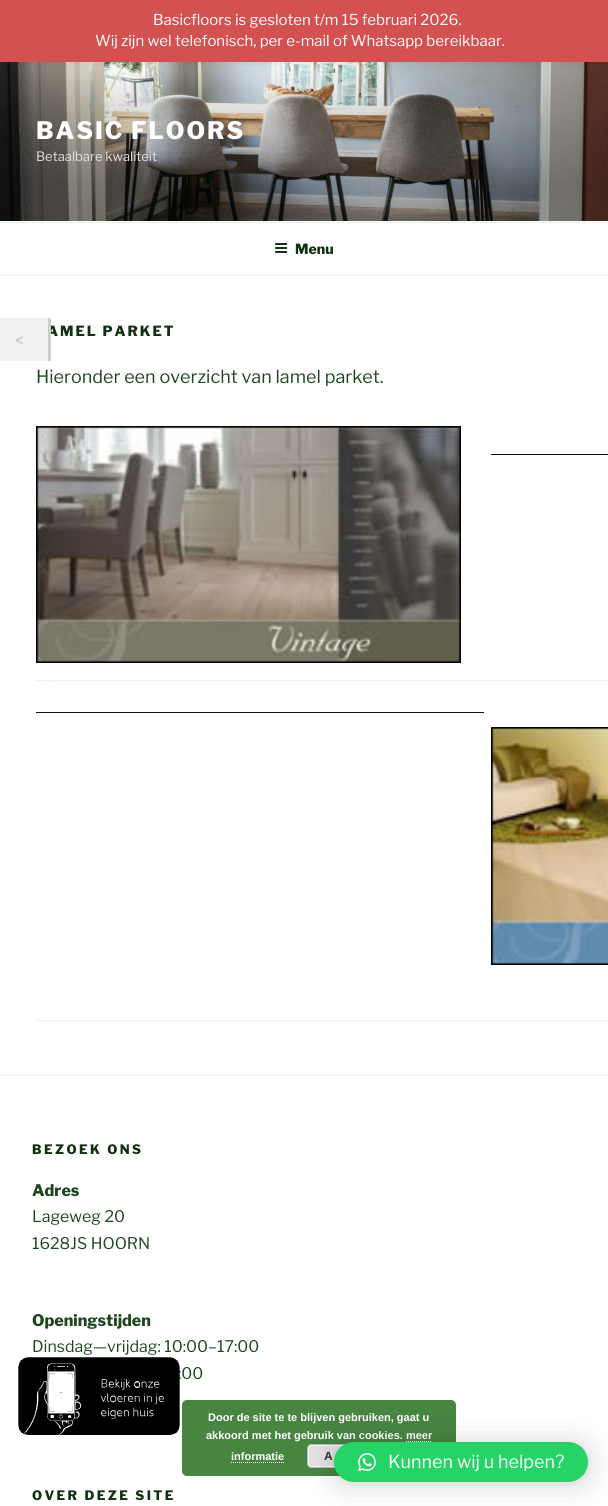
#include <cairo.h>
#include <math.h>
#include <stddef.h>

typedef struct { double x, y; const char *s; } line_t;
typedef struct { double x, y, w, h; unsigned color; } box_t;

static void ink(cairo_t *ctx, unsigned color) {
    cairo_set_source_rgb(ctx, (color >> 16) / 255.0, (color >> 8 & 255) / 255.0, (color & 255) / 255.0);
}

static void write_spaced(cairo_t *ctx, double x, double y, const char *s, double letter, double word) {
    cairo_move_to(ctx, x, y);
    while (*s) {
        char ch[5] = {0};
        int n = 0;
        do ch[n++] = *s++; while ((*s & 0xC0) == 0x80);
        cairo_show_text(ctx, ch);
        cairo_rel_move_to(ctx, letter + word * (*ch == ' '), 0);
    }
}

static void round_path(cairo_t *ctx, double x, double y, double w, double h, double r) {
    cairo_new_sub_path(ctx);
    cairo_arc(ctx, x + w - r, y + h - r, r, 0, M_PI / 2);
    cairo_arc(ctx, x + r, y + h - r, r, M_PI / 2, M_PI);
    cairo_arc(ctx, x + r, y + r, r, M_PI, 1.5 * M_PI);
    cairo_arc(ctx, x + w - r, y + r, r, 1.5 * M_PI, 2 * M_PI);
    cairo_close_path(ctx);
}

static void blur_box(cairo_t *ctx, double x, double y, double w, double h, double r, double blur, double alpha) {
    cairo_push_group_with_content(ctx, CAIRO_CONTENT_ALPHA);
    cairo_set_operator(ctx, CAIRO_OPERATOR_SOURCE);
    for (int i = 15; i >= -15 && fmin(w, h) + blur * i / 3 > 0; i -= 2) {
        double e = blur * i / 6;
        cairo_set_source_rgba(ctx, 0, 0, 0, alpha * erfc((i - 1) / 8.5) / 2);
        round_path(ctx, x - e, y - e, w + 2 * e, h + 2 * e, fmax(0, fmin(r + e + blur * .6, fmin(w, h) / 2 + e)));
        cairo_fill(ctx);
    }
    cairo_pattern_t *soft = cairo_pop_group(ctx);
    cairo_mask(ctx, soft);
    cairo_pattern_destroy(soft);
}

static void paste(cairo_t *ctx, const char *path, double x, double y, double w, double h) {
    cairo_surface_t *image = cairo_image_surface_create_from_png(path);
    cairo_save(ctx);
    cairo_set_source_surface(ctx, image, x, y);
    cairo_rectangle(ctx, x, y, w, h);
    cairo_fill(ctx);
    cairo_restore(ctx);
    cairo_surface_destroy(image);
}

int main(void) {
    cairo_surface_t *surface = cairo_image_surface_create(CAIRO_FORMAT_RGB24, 608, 1506);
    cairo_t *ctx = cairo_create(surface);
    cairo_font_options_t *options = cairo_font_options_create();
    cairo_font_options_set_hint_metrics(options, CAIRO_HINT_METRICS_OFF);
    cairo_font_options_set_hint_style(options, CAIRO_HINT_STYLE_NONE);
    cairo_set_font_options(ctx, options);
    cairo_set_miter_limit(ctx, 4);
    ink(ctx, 0xFFFFFF);
    cairo_paint(ctx);
    paste(ctx, "media/1.png", 0, 62, 608, 159);
    ink(ctx, 0x000000);
    blur_box(ctx, 0, 3, 608, 62, 0, 2, 0.05);
    ink(ctx, 0xD35151);
    cairo_rectangle(ctx, 0, 0, 608, 62);
    cairo_fill(ctx);
    cairo_select_font_face(ctx, "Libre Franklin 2 Thin", CAIRO_FONT_SLANT_NORMAL, CAIRO_FONT_WEIGHT_NORMAL);
    cairo_set_font_size(ctx, 15);
    ink(ctx, 0xFFFFFF);
    cairo_move_to(ctx, 153, 25);
    cairo_show_text(ctx, "Basicfloors is gesloten t/m 15 februari 2026.");
    cairo_move_to(ctx, 95, 46);
    cairo_show_text(ctx, "Wij zijn wel telefonisch, per e-mail of Whatsapp bereikbaar.");
    cairo_select_font_face(ctx, "Libre Franklin Thin", CAIRO_FONT_SLANT_NORMAL, CAIRO_FONT_WEIGHT_NORMAL);
    cairo_set_font_size(ctx, 14);
    ink(ctx, 0x123211);
    write_spaced(ctx, 47, 336, "AMEL PARKET", 2, 0);
    ink(ctx, 0xF1F1F1);
    cairo_rectangle(ctx, 0, 318, 48, 43);
    cairo_fill(ctx);
    ink(ctx, 0xCECECE);
    cairo_rectangle(ctx, 48, 318, 3, 43);
    cairo_fill(ctx);
    cairo_select_font_face(ctx, "Cabin", CAIRO_FONT_SLANT_NORMAL, CAIRO_FONT_WEIGHT_BOLD);
    cairo_set_font_size(ctx, 20);
    cairo_move_to(ctx, 15, 346);
    cairo_show_text(ctx, "<");
    ink(ctx, 0xF8FCF7);
    cairo_rectangle(ctx, 0, 221, 608, 1);
    cairo_fill(ctx);
    cairo_select_font_face(ctx, "Libre Franklin Thin", CAIRO_FONT_SLANT_NORMAL, CAIRO_FONT_WEIGHT_NORMAL);
    cairo_set_font_size(ctx, 24);
    ink(ctx, 0xFFFFFF);
    write_spaced(ctx, 36, 139, "BASIC FLOORS", 2, 0);
    cairo_select_font_face(ctx, "Libre Franklin 2 Thin", CAIRO_FONT_SLANT_NORMAL, CAIRO_FONT_WEIGHT_NORMAL);
    cairo_set_font_size(ctx, 13);
    ink(ctx, 0xE0DFDE);
    cairo_move_to(ctx, 36, 161);
    cairo_show_text(ctx, "Betaalbare kwaliteit");
    ink(ctx, 0xE5F6E4);
    cairo_rectangle(ctx, 0, 222, 608, 1);
    cairo_fill(ctx);
    cairo_rectangle(ctx, 0, 275, 608, 1);
    cairo_fill(ctx);
    paste(ctx, "media/2.png", 275, 243, 13, 10);
    cairo_select_font_face(ctx, "Libre Franklin Thin", CAIRO_FONT_SLANT_NORMAL, CAIRO_FONT_WEIGHT_NORMAL);
    cairo_set_font_size(ctx, 14);
    ink(ctx, 0x123211);
    cairo_move_to(ctx, 295, 254);
    cairo_show_text(ctx, "Menu");
    cairo_select_font_face(ctx, "Libre Franklin 2 Thin", CAIRO_FONT_SLANT_NORMAL, CAIRO_FONT_WEIGHT_NORMAL);
    cairo_set_font_size(ctx, 18);
    ink(ctx, 0x20471F);
    cairo_move_to(ctx, 36, 383);
    cairo_show_text(ctx, "Hieronder een overzicht van lamel parket.");
    ink(ctx, 0xE5F6E4);
    cairo_rectangle(ctx, 36, 680, 572, 1);
    cairo_fill(ctx);
    paste(ctx, "media/3.png", 36, 426, 425, 237);
    {
        static const box_t items[] = {
            {491, 454, 117, 1, 0x081708},
            {36, 1020, 572, 1, 0xE5F6E4},
            {36, 712, 448, 1, 0x081708},
        };
        for (size_t i = 0; i < sizeof items / sizeof *items; i++) {
            ink(ctx, items[i].color);
            cairo_rectangle(ctx, items[i].x, items[i].y, items[i].w, items[i].h);
            cairo_fill(ctx);
        }
    }
    paste(ctx, "media/4.png", 491, 727, 117, 238);
    ink(ctx, 0xE5F6E4);
    cairo_rectangle(ctx, 0, 1075, 608, 1);
    cairo_fill(ctx);
    cairo_select_font_face(ctx, "Libre Franklin Thin", CAIRO_FONT_SLANT_NORMAL, CAIRO_FONT_WEIGHT_NORMAL);
    cairo_set_font_size(ctx, 13);
    ink(ctx, 0x123211);
    write_spaced(ctx, 32, 1154, "BEZOEK ONS", 2.4, 0);
    cairo_set_font_size(ctx, 16);
    ink(ctx, 0x20471F);
    cairo_move_to(ctx, 32, 1196);
    cairo_show_text(ctx, "Adres");
    cairo_select_font_face(ctx, "Libre Franklin 2 Thin", CAIRO_FONT_SLANT_NORMAL, CAIRO_FONT_WEIGHT_NORMAL);
    cairo_move_to(ctx, 32, 1222);
    cairo_show_text(ctx, "Lageweg 20");
    cairo_move_to(ctx, 32, 1249);
    cairo_show_text(ctx, "1628JS HOORN");
    cairo_select_font_face(ctx, "Libre Franklin Thin", CAIRO_FONT_SLANT_NORMAL, CAIRO_FONT_WEIGHT_NORMAL);
    cairo_move_to(ctx, 32, 1326);
    cairo_show_text(ctx, "Openingstijden");
    cairo_select_font_face(ctx, "Libre Franklin 2 Thin", CAIRO_FONT_SLANT_NORMAL, CAIRO_FONT_WEIGHT_NORMAL);
    cairo_move_to(ctx, 32, 1352);
    cairo_show_text(ctx, "Dinsdag—vrijdag: 10:00–17:00");
    cairo_move_to(ctx, 178, 1379);
    cairo_show_text(ctx, ":00");
    cairo_select_font_face(ctx, "Libre Franklin Thin", CAIRO_FONT_SLANT_NORMAL, CAIRO_FONT_WEIGHT_NORMAL);
    cairo_set_font_size(ctx, 13);
    ink(ctx, 0x123211);
    write_spaced(ctx, 32, 1500, "OVER DEZE SITE", 2.4, 0);
    paste(ctx, "media/5.png", 18, 1357, 162, 78);
    cairo_set_source_rgba(ctx, 0.153, 0.439, 0.125, 0.85);
    round_path(ctx, 182, 1400, 274, 76, 5);
    cairo_fill(ctx);
    cairo_select_font_face(ctx, "Liberation Sans", CAIRO_FONT_SLANT_NORMAL, CAIRO_FONT_WEIGHT_BOLD);
    cairo_set_font_size(ctx, 11);
    ink(ctx, 0xFFFFFF);
    {
        static const line_t items[] = {
            {208, 1421, "Door de site te te blijven gebruiken, gaat u"},
            {206, 1439, "akkoord met het gebruik van cookies. meer"},
            {231, 1460, "informatie"},
        };
        for (size_t i = 0; i < sizeof items / sizeof *items; i++) {
            cairo_move_to(ctx, items[i].x, items[i].y);
            cairo_show_text(ctx, items[i].s);
        }
    }
    cairo_new_path(ctx);
    cairo_move_to(ctx, 406, 1441.5);
    cairo_line_to(ctx, 432, 1441.5);
    cairo_set_line_width(ctx, 1);
    cairo_set_dash(ctx, (double[]){1, 1}, 2, 0);
    cairo_stroke(ctx);
    cairo_new_path(ctx);
    cairo_move_to(ctx, 231, 1462.5);
    cairo_line_to(ctx, 284, 1462.5);
    cairo_stroke(ctx);
    ink(ctx, 0xE3E3E3);
    round_path(ctx, 307, 1444, 100, 24, 5);
    cairo_fill(ctx);
    round_path(ctx, 308.5, 1445.5, 97, 21, 3.5);
    ink(ctx, 0xF6F6F6);
    cairo_set_dash(ctx, NULL, 0, 0);
    cairo_stroke(ctx);
    round_path(ctx, 307.5, 1444.5, 99, 23, 4.5);
    ink(ctx, 0xBBBBBB);
    cairo_stroke(ctx);
    cairo_set_font_size(ctx, 12);
    ink(ctx, 0x333333);
    cairo_move_to(ctx, 324, 1460);
    cairo_show_text(ctx, "A");
    ink(ctx, 0x000000);
    blur_box(ctx, 334, 1444, 254, 40, 20, 16, 0.16);
    blur_box(ctx, 334, 1443, 254, 40, 20, 3, 0.06);
    ink(ctx, 0x25D366);
    round_path(ctx, 334, 1442, 254, 40, 20);
    cairo_fill(ctx);
    paste(ctx, "media/6.png", 358, 1453, 18, 19);
    cairo_select_font_face(ctx, "Libre Franklin 2 Thin", CAIRO_FONT_SLANT_NORMAL, CAIRO_FONT_WEIGHT_NORMAL);
    cairo_set_font_size(ctx, 18);
    ink(ctx, 0xFFFFFF);
    cairo_move_to(ctx, 388, 1468);
    cairo_show_text(ctx, "Kunnen wij u helpen?");
    cairo_surface_write_to_png(surface, "image.png");
    cairo_font_options_destroy(options);
    cairo_destroy(ctx);
    cairo_surface_destroy(surface);
    return 0;
}
